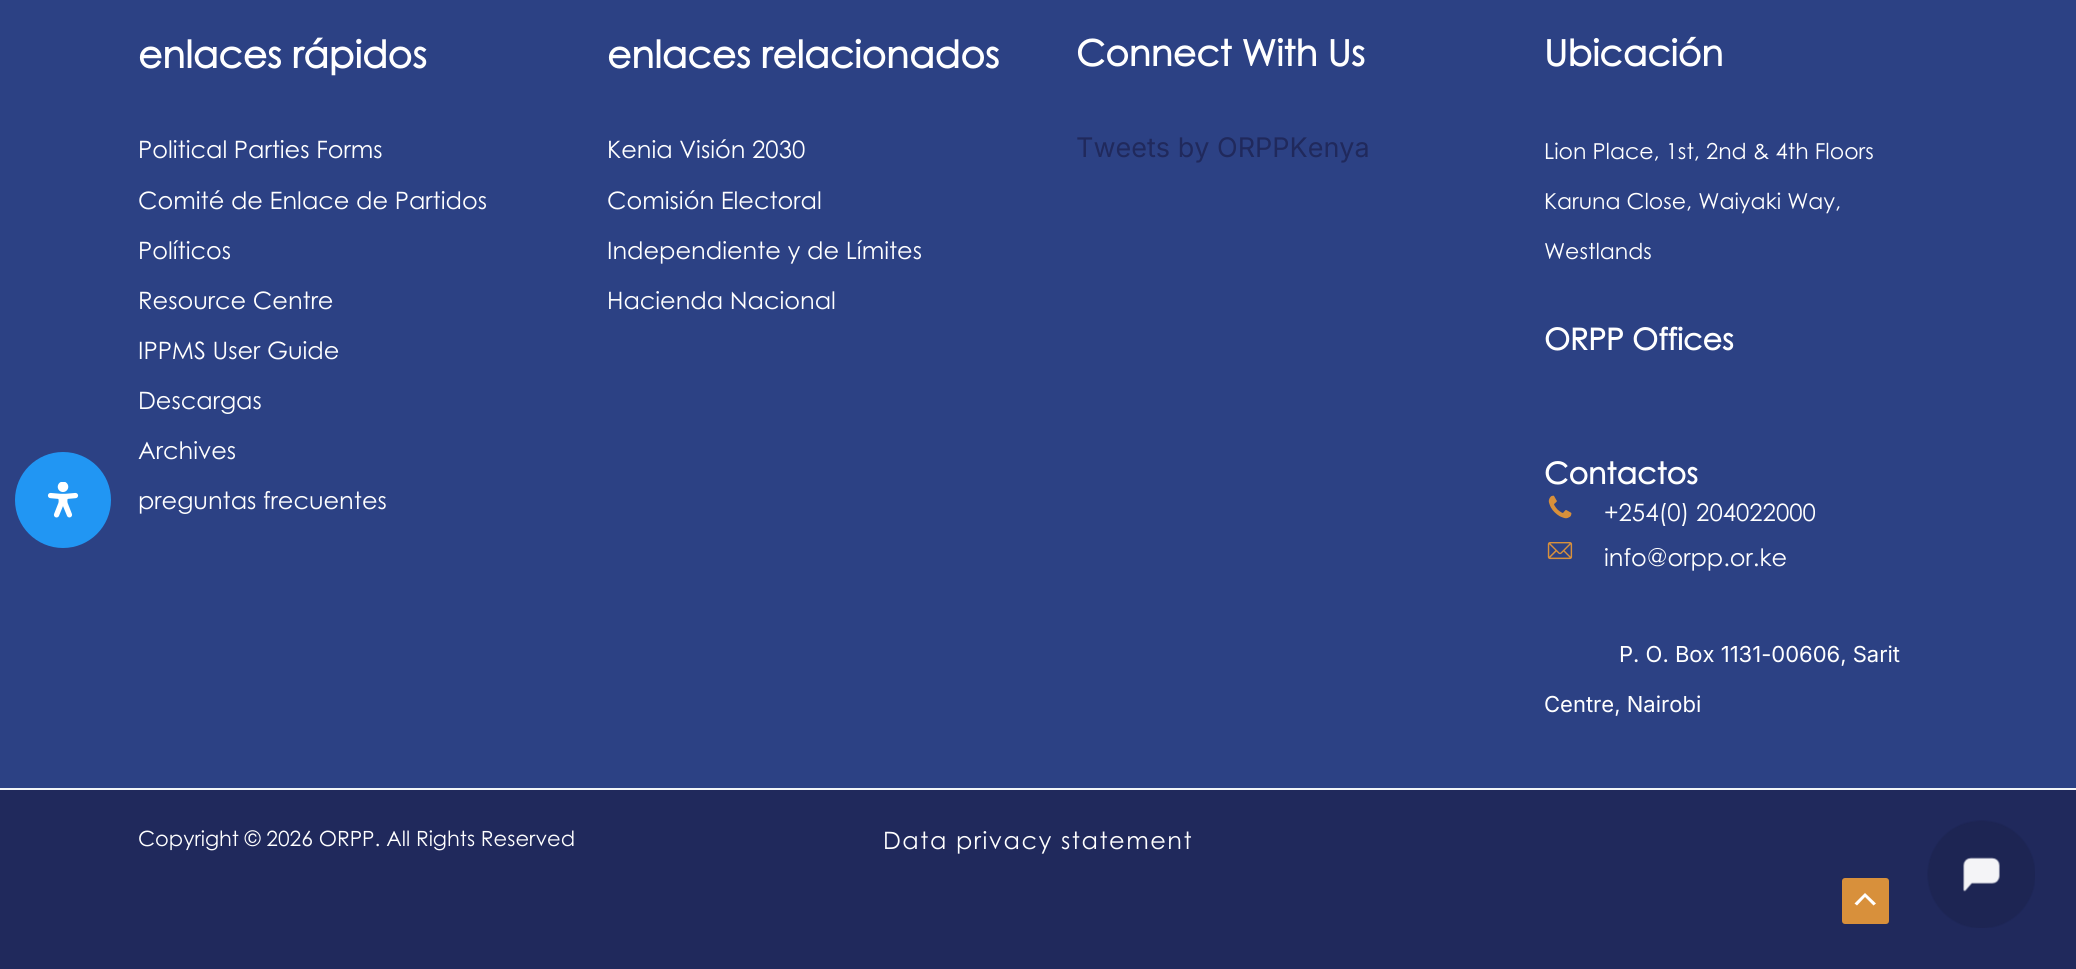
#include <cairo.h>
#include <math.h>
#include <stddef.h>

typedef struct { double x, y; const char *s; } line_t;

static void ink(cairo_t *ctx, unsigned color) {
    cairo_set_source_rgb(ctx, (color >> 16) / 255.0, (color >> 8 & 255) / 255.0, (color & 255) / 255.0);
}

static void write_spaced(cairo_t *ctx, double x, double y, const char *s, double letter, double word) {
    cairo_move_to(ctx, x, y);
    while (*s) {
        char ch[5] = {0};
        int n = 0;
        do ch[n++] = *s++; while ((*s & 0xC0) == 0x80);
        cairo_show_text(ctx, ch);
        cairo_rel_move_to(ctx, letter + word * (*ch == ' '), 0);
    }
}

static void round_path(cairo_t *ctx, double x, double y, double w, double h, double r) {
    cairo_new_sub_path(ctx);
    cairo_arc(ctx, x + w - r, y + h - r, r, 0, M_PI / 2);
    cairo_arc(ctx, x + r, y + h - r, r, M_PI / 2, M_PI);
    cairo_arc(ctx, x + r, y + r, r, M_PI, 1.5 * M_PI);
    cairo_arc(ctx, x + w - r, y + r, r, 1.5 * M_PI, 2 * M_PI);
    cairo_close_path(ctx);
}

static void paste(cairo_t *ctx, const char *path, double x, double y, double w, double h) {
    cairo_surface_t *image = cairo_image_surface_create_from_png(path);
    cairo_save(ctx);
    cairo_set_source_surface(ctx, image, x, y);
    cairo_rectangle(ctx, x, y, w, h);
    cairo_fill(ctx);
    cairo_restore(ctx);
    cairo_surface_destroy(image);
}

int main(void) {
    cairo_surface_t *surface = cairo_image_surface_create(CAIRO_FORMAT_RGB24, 2076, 969);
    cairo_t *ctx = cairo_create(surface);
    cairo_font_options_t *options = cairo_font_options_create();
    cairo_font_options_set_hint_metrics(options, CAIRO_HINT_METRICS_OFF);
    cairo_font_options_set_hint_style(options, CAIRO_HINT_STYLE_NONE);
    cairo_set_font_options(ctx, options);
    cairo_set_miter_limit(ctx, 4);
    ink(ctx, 0x20295C);
    cairo_paint(ctx);
    ink(ctx, 0x2C4184);
    cairo_rectangle(ctx, 0, 0, 2076, 788);
    cairo_fill(ctx);
    ink(ctx, 0x2196F3);
    cairo_arc(ctx, 63, 500, 48, 0, 2 * M_PI);
    cairo_fill(ctx);
    paste(ctx, "media/1.png", 47, 482, 32, 36);
    cairo_select_font_face(ctx, "Century Gothic", CAIRO_FONT_SLANT_NORMAL, CAIRO_FONT_WEIGHT_BOLD);
    cairo_set_font_size(ctx, 37.5);
    ink(ctx, 0xFFFFFF);
    cairo_move_to(ctx, 138, 68);
    cairo_show_text(ctx, "enlaces rápidos");
    cairo_select_font_face(ctx, "Century Gothic", CAIRO_FONT_SLANT_NORMAL, CAIRO_FONT_WEIGHT_NORMAL);
    cairo_set_font_size(ctx, 24);
    {
        static const line_t items[] = {
            {138, 158, "Political Parties Forms"},
            {138, 209, "Comité de Enlace de Partidos"},
            {138, 259, "Políticos"},
            {138, 309, "Resource Centre"},
            {138, 359, "IPPMS User Guide"},
            {138, 409, "Descargas"},
            {138, 459, "Archives"},
            {138, 509, "preguntas frecuentes"},
        };
        for (size_t i = 0; i < sizeof items / sizeof *items; i++) {
            cairo_move_to(ctx, items[i].x, items[i].y);
            cairo_show_text(ctx, items[i].s);
        }
    }
    cairo_select_font_face(ctx, "Century Gothic", CAIRO_FONT_SLANT_NORMAL, CAIRO_FONT_WEIGHT_BOLD);
    cairo_set_font_size(ctx, 37.5);
    cairo_move_to(ctx, 607, 68);
    cairo_show_text(ctx, "enlaces relacionados");
    cairo_select_font_face(ctx, "Century Gothic", CAIRO_FONT_SLANT_NORMAL, CAIRO_FONT_WEIGHT_NORMAL);
    cairo_set_font_size(ctx, 24);
    {
        static const line_t items[] = {
            {607, 158, "Kenia Visión 2030"},
            {607, 209, "Comisión Electoral"},
            {607, 259, "Independiente y de Límites"},
            {607, 309, "Hacienda Nacional"},
        };
        for (size_t i = 0; i < sizeof items / sizeof *items; i++) {
            cairo_move_to(ctx, items[i].x, items[i].y);
            cairo_show_text(ctx, items[i].s);
        }
    }
    cairo_select_font_face(ctx, "Century Gothic", CAIRO_FONT_SLANT_NORMAL, CAIRO_FONT_WEIGHT_BOLD);
    cairo_set_font_size(ctx, 36);
    cairo_move_to(ctx, 1076, 66);
    cairo_show_text(ctx, "Connect With Us");
    cairo_select_font_face(ctx, "Inter", CAIRO_FONT_SLANT_NORMAL, CAIRO_FONT_WEIGHT_NORMAL);
    cairo_set_font_size(ctx, 27);
    ink(ctx, 0x20295C);
    cairo_move_to(ctx, 1076, 157);
    cairo_show_text(ctx, "Tweets by ORPPKenya");
    cairo_select_font_face(ctx, "Century Gothic", CAIRO_FONT_SLANT_NORMAL, CAIRO_FONT_WEIGHT_BOLD);
    cairo_set_font_size(ctx, 36);
    ink(ctx, 0xFFFFFF);
    cairo_move_to(ctx, 1544, 66);
    cairo_show_text(ctx, "Ubicación");
    cairo_select_font_face(ctx, "Century Gothic", CAIRO_FONT_SLANT_NORMAL, CAIRO_FONT_WEIGHT_NORMAL);
    cairo_set_font_size(ctx, 22);
    {
        static const line_t items[] = {
            {1544, 159, "Lion Place, 1st, 2nd & 4th Floors"},
            {1544, 209, "Karuna Close, Waiyaki Way,"},
            {1544, 259, "Westlands"},
        };
        for (size_t i = 0; i < sizeof items / sizeof *items; i++) {
            cairo_move_to(ctx, items[i].x, items[i].y);
            cairo_show_text(ctx, items[i].s);
        }
    }
    cairo_select_font_face(ctx, "Century Gothic", CAIRO_FONT_SLANT_NORMAL, CAIRO_FONT_WEIGHT_BOLD);
    cairo_set_font_size(ctx, 30);
    cairo_move_to(ctx, 1544, 350);
    cairo_show_text(ctx, "ORPP Offices");
    cairo_move_to(ctx, 1544, 484);
    cairo_show_text(ctx, "Contactos");
    paste(ctx, "media/2.png", 1548, 495, 24, 24);
    cairo_select_font_face(ctx, "Century Gothic", CAIRO_FONT_SLANT_NORMAL, CAIRO_FONT_WEIGHT_NORMAL);
    cairo_set_font_size(ctx, 24);
    cairo_move_to(ctx, 1604, 521);
    cairo_show_text(ctx, "+254(0) 204022000");
    paste(ctx, "media/3.png", 1547, 542, 26, 18);
    cairo_move_to(ctx, 1604, 566);
    cairo_show_text(ctx, "info@orpp.or.ke");
    cairo_select_font_face(ctx, "Inter", CAIRO_FONT_SLANT_NORMAL, CAIRO_FONT_WEIGHT_NORMAL);
    cairo_set_font_size(ctx, 22);
    cairo_move_to(ctx, 1619, 662);
    cairo_show_text(ctx, "P. O. Box 1131-00606, Sarit");
    cairo_move_to(ctx, 1544, 712);
    cairo_show_text(ctx, "Centre, Nairobi");
    ink(ctx, 0xF2F5F7);
    cairo_rectangle(ctx, 0, 788, 2076, 2);
    cairo_fill(ctx);
    cairo_select_font_face(ctx, "Century Gothic", CAIRO_FONT_SLANT_NORMAL, CAIRO_FONT_WEIGHT_NORMAL);
    cairo_set_font_size(ctx, 21);
    ink(ctx, 0xFFFFFF);
    cairo_move_to(ctx, 138, 846);
    cairo_show_text(ctx, "Copyright © 2026 ORPP. All Rights Reserved");
    cairo_set_font_size(ctx, 24);
    write_spaced(ctx, 883, 849, "Data privacy statement", 1.5, 0);
    ink(ctx, 0xD8903B);
    round_path(ctx, 1842, 878, 47, 46, 3);
    cairo_fill(ctx);
    ink(ctx, 0xFFFFFF);
    cairo_new_path(ctx);
    cairo_move_to(ctx, 1876, 903.5);
    cairo_line_to(ctx, 1865, 893);
    cairo_line_to(ctx, 1854.5, 903.5);
    cairo_line_to(ctx, 1857, 905.5);
    cairo_line_to(ctx, 1865, 897);
    cairo_line_to(ctx, 1873.5, 905.5);
    cairo_close_path(ctx);
    cairo_fill(ctx);
    paste(ctx, "media/4.png", 1927, 820, 108, 108);
    cairo_surface_write_to_png(surface, "image.png");
    cairo_font_options_destroy(options);
    cairo_destroy(ctx);
    cairo_surface_destroy(surface);
    return 0;
}
